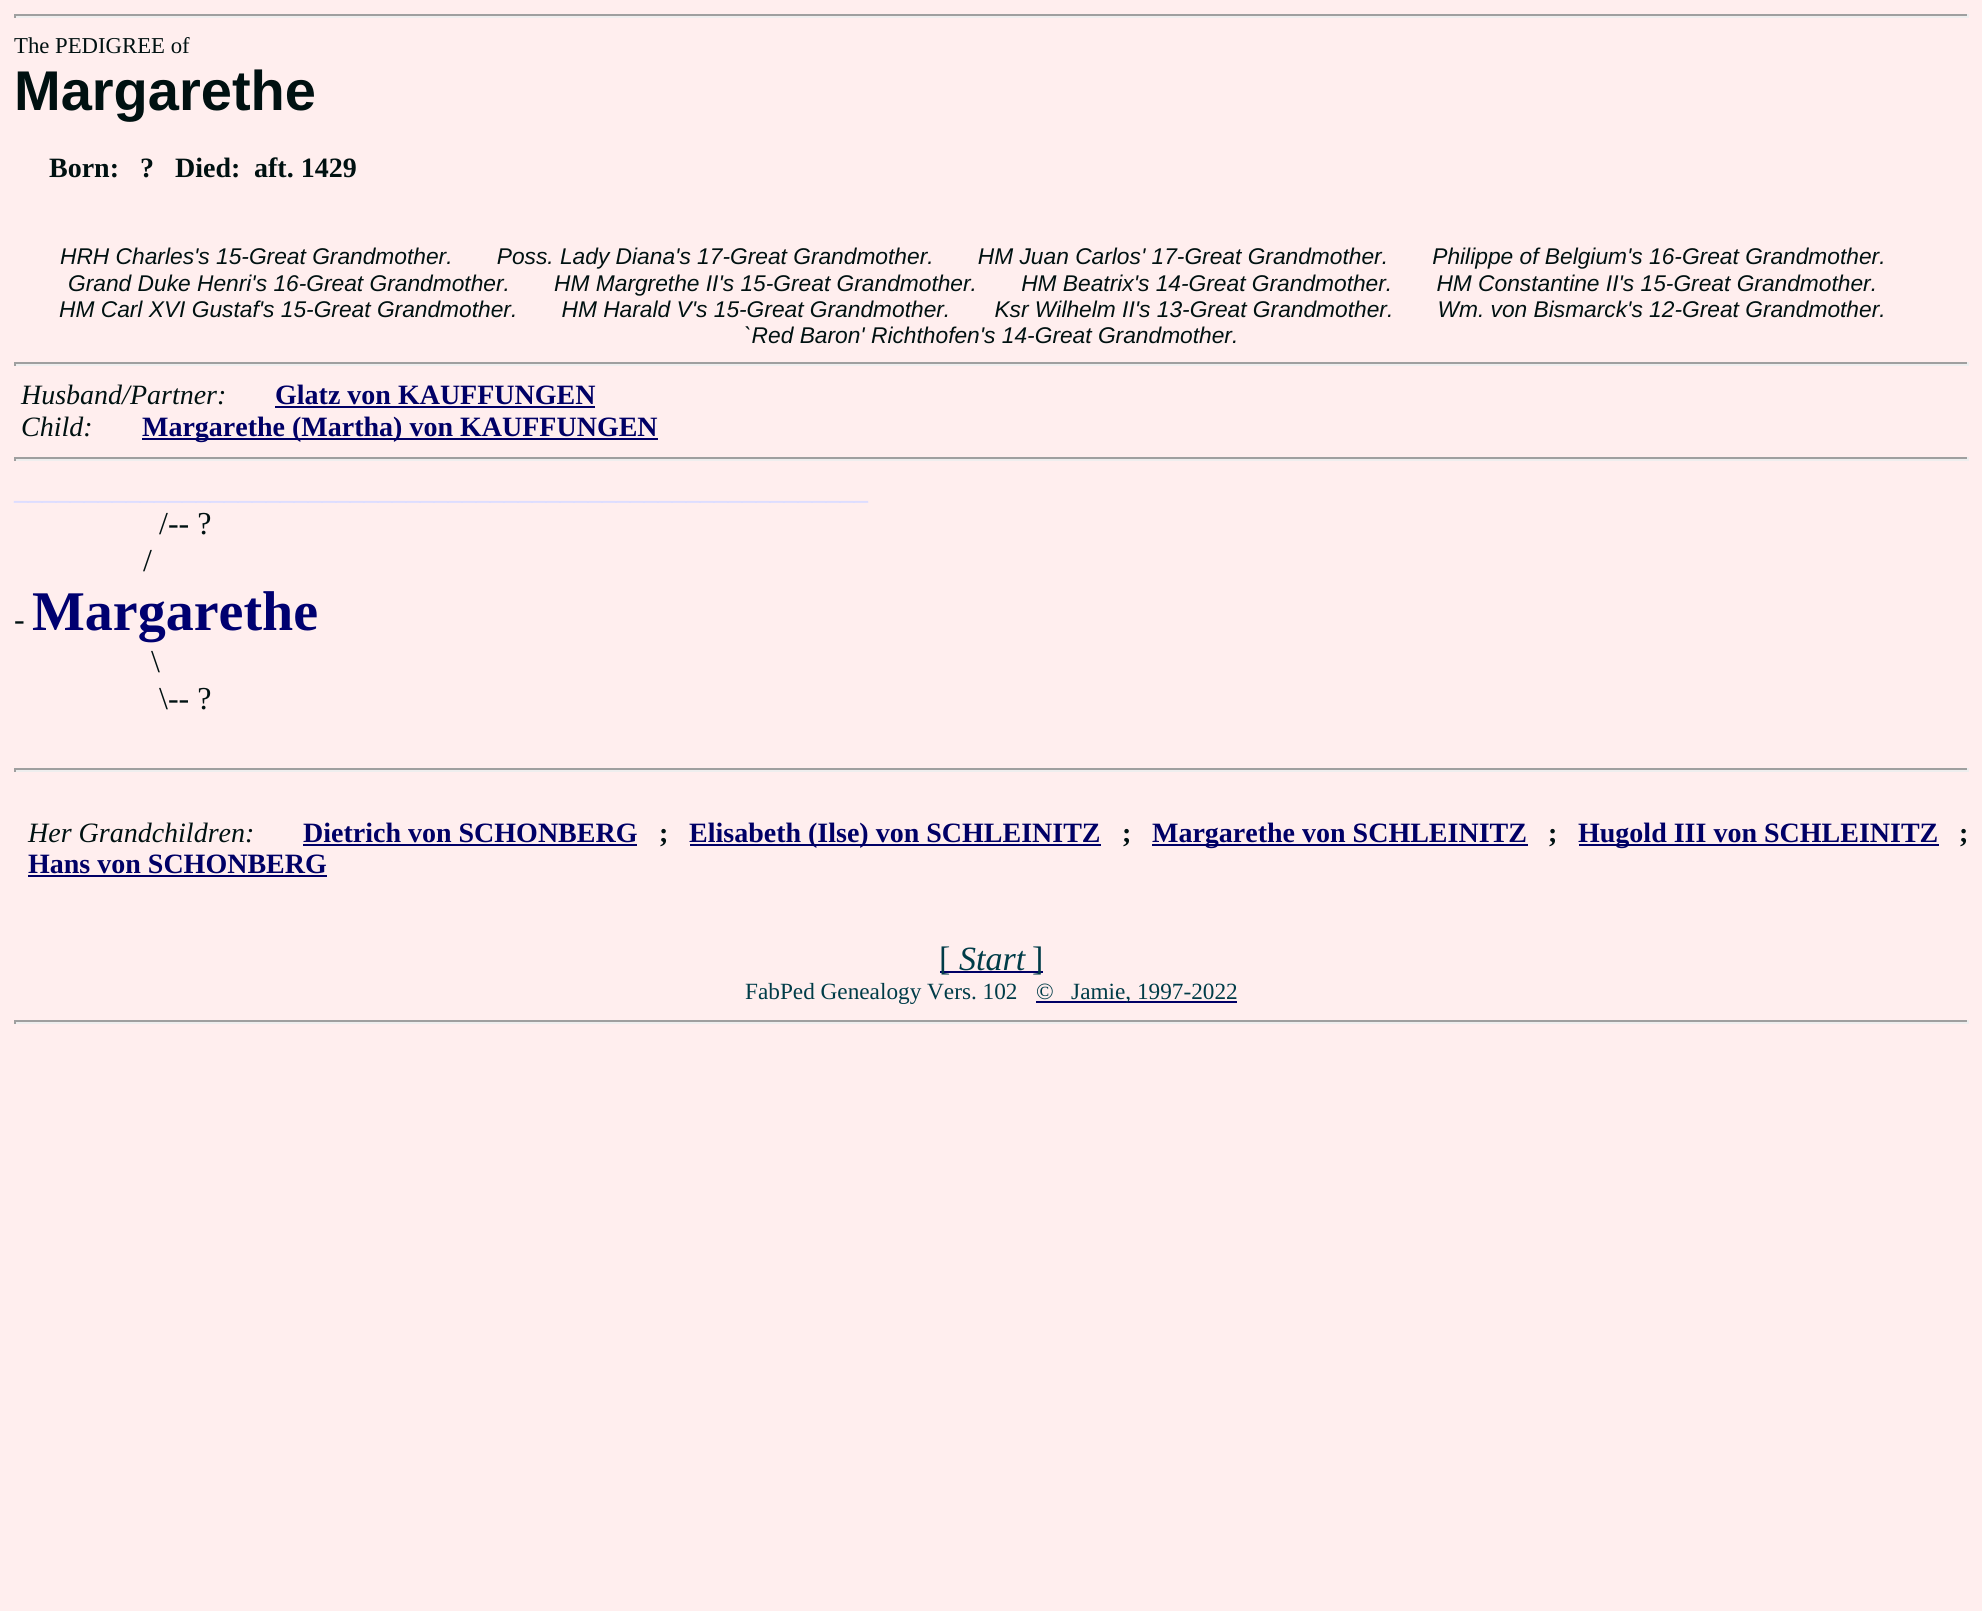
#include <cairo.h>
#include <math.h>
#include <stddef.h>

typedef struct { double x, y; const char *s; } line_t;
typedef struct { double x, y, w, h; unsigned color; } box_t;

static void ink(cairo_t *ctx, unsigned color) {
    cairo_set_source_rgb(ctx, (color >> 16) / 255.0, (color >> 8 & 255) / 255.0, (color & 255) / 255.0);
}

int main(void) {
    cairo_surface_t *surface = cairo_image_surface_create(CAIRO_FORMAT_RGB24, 1982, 1611);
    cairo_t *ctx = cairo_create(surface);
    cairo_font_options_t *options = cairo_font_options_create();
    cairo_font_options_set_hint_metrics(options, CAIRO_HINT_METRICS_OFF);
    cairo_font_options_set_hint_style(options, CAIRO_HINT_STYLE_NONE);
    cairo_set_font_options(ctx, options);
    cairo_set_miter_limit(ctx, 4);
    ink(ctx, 0xFFEEEE);
    cairo_paint(ctx);
    {
        static const box_t items[] = {
            {14, 14, 1955, 2, 0x9F9F9F},
            {1967, 14, 2, 4, 0xEEEEEE},
            {14, 16, 1955, 2, 0xEEEEEE},
            {14, 14, 2, 4, 0x9F9F9F},
        };
        for (size_t i = 0; i < sizeof items / sizeof *items; i++) {
            ink(ctx, items[i].color);
            cairo_rectangle(ctx, items[i].x, items[i].y, items[i].w, items[i].h);
            cairo_fill(ctx);
        }
    }
    cairo_select_font_face(ctx, "Liberation Serif", CAIRO_FONT_SLANT_NORMAL, CAIRO_FONT_WEIGHT_NORMAL);
    cairo_set_font_size(ctx, 22.75);
    ink(ctx, 0x001111);
    cairo_move_to(ctx, 14, 53);
    cairo_show_text(ctx, "The PEDIGREE of");
    cairo_select_font_face(ctx, "Liberation Sans", CAIRO_FONT_SLANT_NORMAL, CAIRO_FONT_WEIGHT_BOLD);
    cairo_set_font_size(ctx, 56);
    cairo_move_to(ctx, 14, 110);
    cairo_show_text(ctx, "Margarethe");
    cairo_select_font_face(ctx, "Liberation Serif", CAIRO_FONT_SLANT_NORMAL, CAIRO_FONT_WEIGHT_BOLD);
    cairo_set_font_size(ctx, 28);
    {
        static const line_t items[] = {
            {49, 177, "Born:"},
            {140, 177, "?   Died:"},
            {254, 177, "aft. 1429"},
        };
        for (size_t i = 0; i < sizeof items / sizeof *items; i++) {
            cairo_move_to(ctx, items[i].x, items[i].y);
            cairo_show_text(ctx, items[i].s);
        }
    }
    cairo_select_font_face(ctx, "Liberation Sans", CAIRO_FONT_SLANT_ITALIC, CAIRO_FONT_WEIGHT_NORMAL);
    cairo_set_font_size(ctx, 22.75);
    {
        static const line_t items[] = {
            {60, 264, "HRH Charles's 15-Great Grandmother.       Poss. Lady Diana's 17-Great Grandmother.       HM Juan Carlos' 17-Great Grandmother.       Philippe of Belgium's 16-Great Grandmother."},
            {68, 291, "Grand Duke Henri's 16-Great Grandmother.       HM Margrethe II's 15-Great Grandmother.       HM Beatrix's 14-Great Grandmother.       HM Constantine II's 15-Great Grandmother."},
            {59, 317, "HM Carl XVI Gustaf's 15-Great Grandmother.       HM Harald V's 15-Great Grandmother.       Ksr Wilhelm II's 13-Great Grandmother.       Wm. von Bismarck's 12-Great Grandmother."},
            {744, 343, "`Red Baron' Richthofen's 14-Great Grandmother."},
        };
        for (size_t i = 0; i < sizeof items / sizeof *items; i++) {
            cairo_move_to(ctx, items[i].x, items[i].y);
            cairo_show_text(ctx, items[i].s);
        }
    }
    {
        static const box_t items[] = {
            {14, 362, 1955, 2, 0x9F9F9F},
            {1967, 362, 2, 4, 0xEEEEEE},
            {14, 364, 1955, 2, 0xEEEEEE},
            {14, 362, 2, 4, 0x9F9F9F},
        };
        for (size_t i = 0; i < sizeof items / sizeof *items; i++) {
            ink(ctx, items[i].color);
            cairo_rectangle(ctx, items[i].x, items[i].y, items[i].w, items[i].h);
            cairo_fill(ctx);
        }
    }
    cairo_select_font_face(ctx, "Liberation Serif", CAIRO_FONT_SLANT_ITALIC, CAIRO_FONT_WEIGHT_NORMAL);
    cairo_set_font_size(ctx, 28);
    ink(ctx, 0x001111);
    cairo_move_to(ctx, 21, 404);
    cairo_show_text(ctx, "Husband/Partner:");
    cairo_select_font_face(ctx, "Liberation Serif", CAIRO_FONT_SLANT_NORMAL, CAIRO_FONT_WEIGHT_BOLD);
    ink(ctx, 0x000066);
    cairo_move_to(ctx, 275, 404);
    cairo_show_text(ctx, "Glatz von KAUFFUNGEN");
    cairo_rectangle(ctx, 275, 406, 320, 2);
    cairo_fill(ctx);
    cairo_select_font_face(ctx, "Liberation Serif", CAIRO_FONT_SLANT_ITALIC, CAIRO_FONT_WEIGHT_NORMAL);
    ink(ctx, 0x001111);
    cairo_move_to(ctx, 21, 436);
    cairo_show_text(ctx, "Child:");
    ink(ctx, 0x000066);
    cairo_rectangle(ctx, 142, 438, 516, 2);
    cairo_fill(ctx);
    cairo_select_font_face(ctx, "Liberation Serif", CAIRO_FONT_SLANT_NORMAL, CAIRO_FONT_WEIGHT_BOLD);
    cairo_move_to(ctx, 142, 436);
    cairo_show_text(ctx, "Margarethe (Martha) von KAUFFUNGEN");
    {
        static const box_t items[] = {
            {14, 457, 1955, 2, 0x9F9F9F},
            {1967, 457, 2, 4, 0xEEEEEE},
            {14, 459, 1955, 2, 0xEEEEEE},
            {14, 457, 2, 4, 0x9F9F9F},
        };
        for (size_t i = 0; i < sizeof items / sizeof *items; i++) {
            ink(ctx, items[i].color);
            cairo_rectangle(ctx, items[i].x, items[i].y, items[i].w, items[i].h);
            cairo_fill(ctx);
        }
    }
    ink(ctx, 0xDDDDFF);
    cairo_move_to(ctx, 14, 499);
    cairo_show_text(ctx, "_____________________________________________________________");
    cairo_select_font_face(ctx, "Liberation Serif", CAIRO_FONT_SLANT_NORMAL, CAIRO_FONT_WEIGHT_NORMAL);
    cairo_set_font_size(ctx, 32);
    ink(ctx, 0x001111);
    {
        static const line_t items[] = {
            {159, 534, "/-- ?"},
            {143, 571, "/"},
            {14, 630, "-"},
        };
        for (size_t i = 0; i < sizeof items / sizeof *items; i++) {
            cairo_move_to(ctx, items[i].x, items[i].y);
            cairo_show_text(ctx, items[i].s);
        }
    }
    cairo_select_font_face(ctx, "Liberation Serif", CAIRO_FONT_SLANT_NORMAL, CAIRO_FONT_WEIGHT_BOLD);
    cairo_set_font_size(ctx, 56);
    ink(ctx, 0x000070);
    cairo_move_to(ctx, 32, 630);
    cairo_show_text(ctx, "Margarethe");
    cairo_select_font_face(ctx, "Liberation Serif", CAIRO_FONT_SLANT_NORMAL, CAIRO_FONT_WEIGHT_NORMAL);
    cairo_set_font_size(ctx, 32);
    ink(ctx, 0x001111);
    cairo_move_to(ctx, 151, 672);
    cairo_show_text(ctx, "\\");
    cairo_move_to(ctx, 159, 709);
    cairo_show_text(ctx, "\\-- ?");
    {
        static const box_t items[] = {
            {14, 768, 1955, 2, 0x9F9F9F},
            {1967, 768, 2, 4, 0xEEEEEE},
            {14, 770, 1955, 2, 0xEEEEEE},
            {14, 768, 2, 4, 0x9F9F9F},
        };
        for (size_t i = 0; i < sizeof items / sizeof *items; i++) {
            ink(ctx, items[i].color);
            cairo_rectangle(ctx, items[i].x, items[i].y, items[i].w, items[i].h);
            cairo_fill(ctx);
        }
    }
    cairo_select_font_face(ctx, "Liberation Serif", CAIRO_FONT_SLANT_ITALIC, CAIRO_FONT_WEIGHT_NORMAL);
    cairo_set_font_size(ctx, 28);
    ink(ctx, 0x001111);
    cairo_move_to(ctx, 28, 842);
    cairo_show_text(ctx, "Her Grandchildren:");
    cairo_select_font_face(ctx, "Liberation Serif", CAIRO_FONT_SLANT_NORMAL, CAIRO_FONT_WEIGHT_BOLD);
    ink(ctx, 0x000066);
    cairo_move_to(ctx, 303, 842);
    cairo_show_text(ctx, "Dietrich von SCHONBERG");
    cairo_rectangle(ctx, 303, 844, 334, 2);
    cairo_fill(ctx);
    ink(ctx, 0x001111);
    cairo_move_to(ctx, 659, 842);
    cairo_show_text(ctx, ";");
    ink(ctx, 0x000066);
    cairo_rectangle(ctx, 690, 844, 411, 2);
    cairo_fill(ctx);
    cairo_move_to(ctx, 689, 842);
    cairo_show_text(ctx, "Elisabeth (Ilse) von SCHLEINITZ");
    ink(ctx, 0x001111);
    cairo_move_to(ctx, 1122, 842);
    cairo_show_text(ctx, ";");
    ink(ctx, 0x000066);
    cairo_rectangle(ctx, 1152, 844, 376, 2);
    cairo_fill(ctx);
    cairo_move_to(ctx, 1152, 842);
    cairo_show_text(ctx, "Margarethe von SCHLEINITZ");
    ink(ctx, 0x001111);
    cairo_move_to(ctx, 1548, 842);
    cairo_show_text(ctx, ";");
    ink(ctx, 0x000066);
    cairo_rectangle(ctx, 1579, 844, 360, 2);
    cairo_fill(ctx);
    cairo_move_to(ctx, 1578, 842);
    cairo_show_text(ctx, "Hugold III von SCHLEINITZ");
    ink(ctx, 0x001111);
    cairo_move_to(ctx, 1959, 842);
    cairo_show_text(ctx, ";");
    ink(ctx, 0x000066);
    cairo_move_to(ctx, 28, 873);
    cairo_show_text(ctx, "Hans von SCHONBERG");
    cairo_rectangle(ctx, 28, 875, 299, 2);
    cairo_fill(ctx);
    cairo_rectangle(ctx, 940, 971, 103, 2);
    cairo_fill(ctx);
    cairo_select_font_face(ctx, "Liberation Serif", CAIRO_FONT_SLANT_NORMAL, CAIRO_FONT_WEIGHT_NORMAL);
    cairo_set_font_size(ctx, 34);
    ink(ctx, 0x003C48);
    cairo_move_to(ctx, 939, 970);
    cairo_show_text(ctx, "[");
    cairo_select_font_face(ctx, "Liberation Serif", CAIRO_FONT_SLANT_ITALIC, CAIRO_FONT_WEIGHT_NORMAL);
    cairo_move_to(ctx, 959, 970);
    cairo_show_text(ctx, "Start");
    cairo_select_font_face(ctx, "Liberation Serif", CAIRO_FONT_SLANT_NORMAL, CAIRO_FONT_WEIGHT_NORMAL);
    cairo_move_to(ctx, 1032, 970);
    cairo_show_text(ctx, "]");
    cairo_set_font_size(ctx, 23.25);
    cairo_move_to(ctx, 745, 999);
    cairo_show_text(ctx, "FabPed Genealogy Vers. 102");
    ink(ctx, 0x000066);
    cairo_rectangle(ctx, 1036, 1001, 201, 2);
    cairo_fill(ctx);
    ink(ctx, 0x003C48);
    cairo_move_to(ctx, 1036, 999);
    cairo_show_text(ctx, "©   Jamie, 1997-2022");
    {
        static const box_t items[] = {
            {14, 1020, 1955, 2, 0x9F9F9F},
            {1967, 1020, 2, 4, 0xEEEEEE},
            {14, 1022, 1955, 2, 0xEEEEEE},
            {14, 1020, 2, 4, 0x9F9F9F},
        };
        for (size_t i = 0; i < sizeof items / sizeof *items; i++) {
            ink(ctx, items[i].color);
            cairo_rectangle(ctx, items[i].x, items[i].y, items[i].w, items[i].h);
            cairo_fill(ctx);
        }
    }
    cairo_surface_write_to_png(surface, "image.png");
    cairo_font_options_destroy(options);
    cairo_destroy(ctx);
    cairo_surface_destroy(surface);
    return 0;
}
